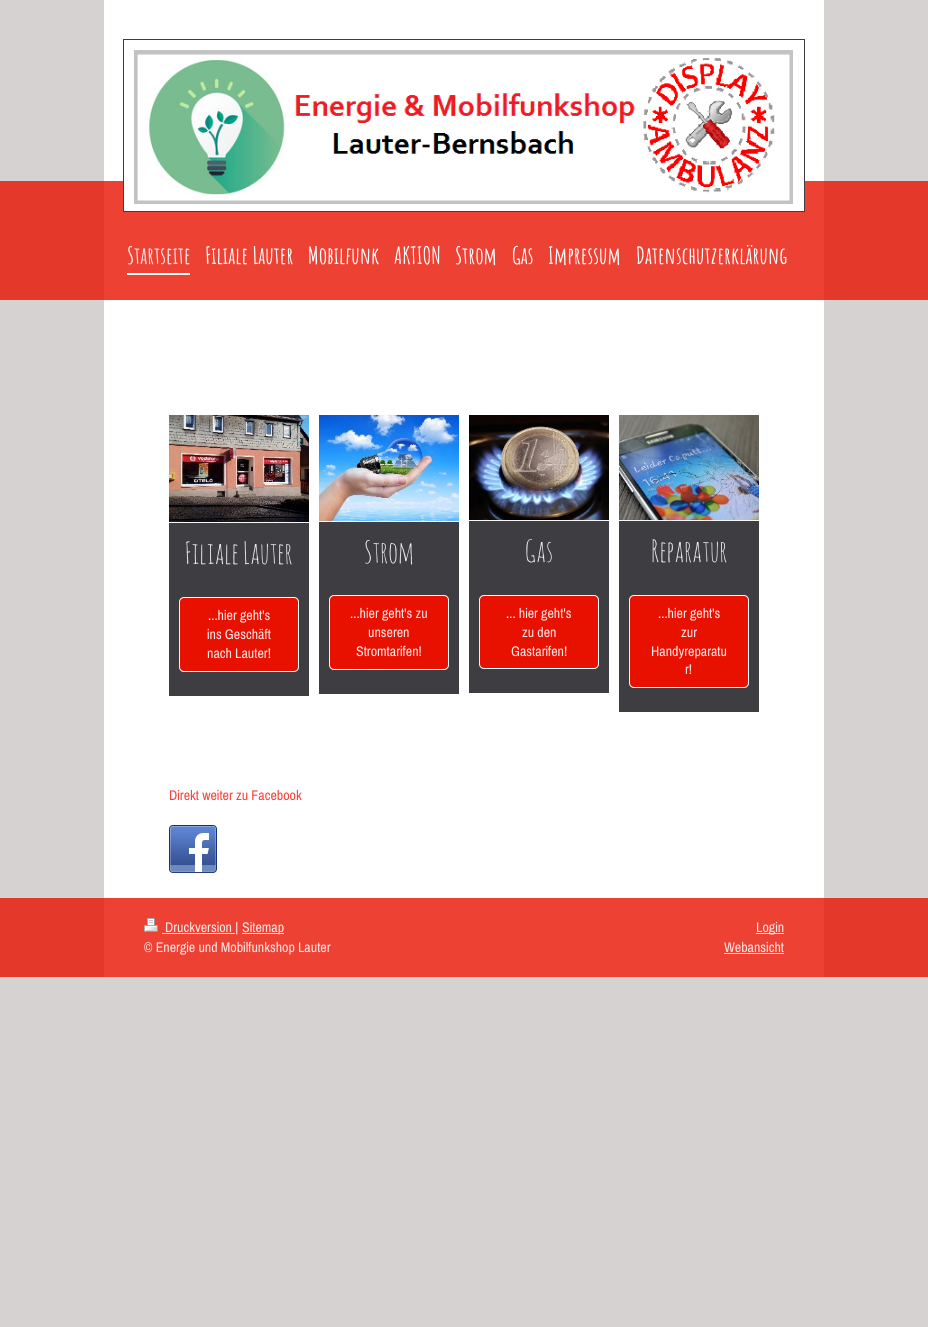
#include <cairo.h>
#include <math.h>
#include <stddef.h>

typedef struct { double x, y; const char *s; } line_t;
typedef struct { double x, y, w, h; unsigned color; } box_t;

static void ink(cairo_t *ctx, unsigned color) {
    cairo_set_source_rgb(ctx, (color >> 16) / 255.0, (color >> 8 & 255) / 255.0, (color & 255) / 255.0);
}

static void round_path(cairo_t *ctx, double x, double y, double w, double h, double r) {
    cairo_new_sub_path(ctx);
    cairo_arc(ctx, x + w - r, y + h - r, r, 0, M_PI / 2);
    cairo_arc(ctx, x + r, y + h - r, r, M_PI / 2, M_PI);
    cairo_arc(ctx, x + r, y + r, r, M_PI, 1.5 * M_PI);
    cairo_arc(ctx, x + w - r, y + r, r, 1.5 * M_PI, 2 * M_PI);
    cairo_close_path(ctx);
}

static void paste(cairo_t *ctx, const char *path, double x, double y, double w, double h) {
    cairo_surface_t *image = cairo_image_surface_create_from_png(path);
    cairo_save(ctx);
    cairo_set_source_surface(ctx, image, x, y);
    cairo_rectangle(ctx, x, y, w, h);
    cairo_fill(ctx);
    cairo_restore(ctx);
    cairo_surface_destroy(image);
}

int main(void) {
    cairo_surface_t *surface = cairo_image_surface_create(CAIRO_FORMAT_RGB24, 928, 1327);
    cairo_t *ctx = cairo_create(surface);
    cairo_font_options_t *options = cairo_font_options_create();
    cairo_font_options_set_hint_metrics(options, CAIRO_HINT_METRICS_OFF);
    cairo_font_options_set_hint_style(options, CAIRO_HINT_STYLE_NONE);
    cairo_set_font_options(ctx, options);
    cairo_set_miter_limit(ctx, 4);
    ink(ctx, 0xD6D2D1);
    cairo_paint(ctx);
    {
        static const box_t items[] = {
            {0, 898, 928, 79, 0xE4382A},
            {0, 181, 928, 119, 0xE4382A},
            {104, 0, 720, 898, 0xFFFFFF},
            {104, 898, 720, 79, 0xED4133},
            {104, 181, 720, 119, 0xED4133},
        };
        for (size_t i = 0; i < sizeof items / sizeof *items; i++) {
            ink(ctx, items[i].color);
            cairo_rectangle(ctx, items[i].x, items[i].y, items[i].w, items[i].h);
            cairo_fill(ctx);
        }
    }
    cairo_rectangle(ctx, 123.5, 39.5, 681, 172);
    ink(ctx, 0x3E3D42);
    cairo_set_line_width(ctx, 1);
    cairo_stroke(ctx);
    ink(ctx, 0xFFFFFF);
    cairo_rectangle(ctx, 124, 181, 680, 30);
    cairo_fill(ctx);
    paste(ctx, "media/1.png", 134, 50, 659, 154);
    cairo_rectangle(ctx, 127, 273, 63, 2);
    cairo_fill(ctx);
    cairo_select_font_face(ctx, "Amatic SC", CAIRO_FONT_SLANT_NORMAL, CAIRO_FONT_WEIGHT_BOLD);
    cairo_set_font_size(ctx, 23.5);
    ink(ctx, 0xFDE7E6);
    cairo_move_to(ctx, 127, 264);
    cairo_show_text(ctx, "Startseite");
    ink(ctx, 0xFFFFFF);
    {
        static const line_t items[] = {
            {205, 264, "Filiale Lauter"},
            {308, 264, "Mobilfunk"},
            {394, 264, "AKTION"},
            {455, 264, "Strom"},
            {512, 264, "Gas"},
            {548, 264, "Impressum"},
            {636, 264, "Datenschutzerklärung"},
        };
        for (size_t i = 0; i < sizeof items / sizeof *items; i++) {
            cairo_move_to(ctx, items[i].x, items[i].y);
            cairo_show_text(ctx, items[i].s);
        }
    }
    ink(ctx, 0x3E3D42);
    cairo_rectangle(ctx, 169, 523, 140, 173);
    cairo_fill(ctx);
    ink(ctx, 0xF8F8F8);
    cairo_rectangle(ctx, 169, 522, 140, 1);
    cairo_fill(ctx);
    paste(ctx, "media/2.png", 169, 415, 140, 107);
    cairo_select_font_face(ctx, "Amatic SC", CAIRO_FONT_SLANT_NORMAL, CAIRO_FONT_WEIGHT_NORMAL);
    cairo_set_font_size(ctx, 30);
    ink(ctx, 0xECECEC);
    cairo_move_to(ctx, 185, 564);
    cairo_show_text(ctx, "Filiale Lauter");
    ink(ctx, 0xE81100);
    round_path(ctx, 179.5, 597.5, 119, 74, 4.5);
    cairo_fill_preserve(ctx);
    ink(ctx, 0xFFFFFF);
    cairo_stroke(ctx);
    cairo_select_font_face(ctx, "Archivo Narrow", CAIRO_FONT_SLANT_NORMAL, CAIRO_FONT_WEIGHT_NORMAL);
    cairo_set_font_size(ctx, 14);
    ink(ctx, 0xFDE7E6);
    {
        static const line_t items[] = {
            {208, 620, "...hier geht's"},
            {207, 639, "ins Geschäft"},
            {207, 658, "nach Lauter!"},
        };
        for (size_t i = 0; i < sizeof items / sizeof *items; i++) {
            cairo_move_to(ctx, items[i].x, items[i].y);
            cairo_show_text(ctx, items[i].s);
        }
    }
    ink(ctx, 0x3E3D42);
    cairo_rectangle(ctx, 319, 522, 140, 172);
    cairo_fill(ctx);
    ink(ctx, 0xF8F8F8);
    cairo_rectangle(ctx, 319, 521, 140, 1);
    cairo_fill(ctx);
    paste(ctx, "media/3.png", 319, 415, 140, 106);
    cairo_select_font_face(ctx, "Amatic SC", CAIRO_FONT_SLANT_NORMAL, CAIRO_FONT_WEIGHT_NORMAL);
    cairo_set_font_size(ctx, 30);
    ink(ctx, 0xECECEC);
    cairo_move_to(ctx, 364, 563);
    cairo_show_text(ctx, "Strom");
    ink(ctx, 0xE81100);
    round_path(ctx, 329.5, 595.5, 119, 74, 4.5);
    cairo_fill_preserve(ctx);
    ink(ctx, 0xFFFFFF);
    cairo_stroke(ctx);
    cairo_select_font_face(ctx, "Archivo Narrow", CAIRO_FONT_SLANT_NORMAL, CAIRO_FONT_WEIGHT_NORMAL);
    cairo_set_font_size(ctx, 14);
    ink(ctx, 0xFDE7E6);
    {
        static const line_t items[] = {
            {350, 618, "...hier geht's zu"},
            {368, 637, "unseren"},
            {356, 656, "Stromtarifen!"},
        };
        for (size_t i = 0; i < sizeof items / sizeof *items; i++) {
            cairo_move_to(ctx, items[i].x, items[i].y);
            cairo_show_text(ctx, items[i].s);
        }
    }
    ink(ctx, 0x3E3D42);
    cairo_rectangle(ctx, 469, 521, 140, 172);
    cairo_fill(ctx);
    ink(ctx, 0xF8F8F8);
    cairo_rectangle(ctx, 469, 520, 140, 1);
    cairo_fill(ctx);
    paste(ctx, "media/4.png", 469, 415, 140, 105);
    cairo_select_font_face(ctx, "Amatic SC", CAIRO_FONT_SLANT_NORMAL, CAIRO_FONT_WEIGHT_NORMAL);
    cairo_set_font_size(ctx, 30);
    ink(ctx, 0xECECEC);
    cairo_move_to(ctx, 525, 562);
    cairo_show_text(ctx, "Gas");
    ink(ctx, 0xE81100);
    round_path(ctx, 479.5, 595.5, 119, 73, 4.5);
    cairo_fill_preserve(ctx);
    ink(ctx, 0xFFFFFF);
    cairo_stroke(ctx);
    cairo_select_font_face(ctx, "Archivo Narrow", CAIRO_FONT_SLANT_NORMAL, CAIRO_FONT_WEIGHT_NORMAL);
    cairo_set_font_size(ctx, 14);
    ink(ctx, 0xFDE7E6);
    {
        static const line_t items[] = {
            {506, 618, "... hier geht's"},
            {522, 637, "zu den"},
            {511, 656, "Gastarifen!"},
        };
        for (size_t i = 0; i < sizeof items / sizeof *items; i++) {
            cairo_move_to(ctx, items[i].x, items[i].y);
            cairo_show_text(ctx, items[i].s);
        }
    }
    ink(ctx, 0x3E3D42);
    cairo_rectangle(ctx, 619, 521, 140, 191);
    cairo_fill(ctx);
    ink(ctx, 0xF8F8F8);
    cairo_rectangle(ctx, 619, 520, 140, 1);
    cairo_fill(ctx);
    paste(ctx, "media/5.png", 619, 415, 140, 105);
    cairo_select_font_face(ctx, "Amatic SC", CAIRO_FONT_SLANT_NORMAL, CAIRO_FONT_WEIGHT_NORMAL);
    cairo_set_font_size(ctx, 30);
    ink(ctx, 0xECECEC);
    cairo_move_to(ctx, 651, 562);
    cairo_show_text(ctx, "Reparatur");
    ink(ctx, 0xE81100);
    round_path(ctx, 629.5, 595.5, 119, 92, 4.5);
    cairo_fill_preserve(ctx);
    ink(ctx, 0xFFFFFF);
    cairo_stroke(ctx);
    cairo_select_font_face(ctx, "Archivo Narrow", CAIRO_FONT_SLANT_NORMAL, CAIRO_FONT_WEIGHT_NORMAL);
    cairo_set_font_size(ctx, 14);
    ink(ctx, 0xFDE7E6);
    {
        static const line_t items[] = {
            {658, 618, "...hier geht's"},
            {681, 637, "zur"},
            {651, 656, "Handyreparatu"},
            {685, 674, "r!"},
        };
        for (size_t i = 0; i < sizeof items / sizeof *items; i++) {
            cairo_move_to(ctx, items[i].x, items[i].y);
            cairo_show_text(ctx, items[i].s);
        }
    }
    ink(ctx, 0xF7433A);
    cairo_move_to(ctx, 169, 800);
    cairo_show_text(ctx, "Direkt weiter zu Facebook");
    paste(ctx, "media/6.png", 169, 825, 48, 48);
    paste(ctx, "media/7.png", 144, 918, 14, 14);
    ink(ctx, 0xFDE7E6);
    cairo_rectangle(ctx, 162, 933, 73, 1);
    cairo_fill(ctx);
    cairo_move_to(ctx, 165, 932);
    cairo_show_text(ctx, "Druckversion |");
    cairo_rectangle(ctx, 242, 933, 42, 1);
    cairo_fill(ctx);
    cairo_move_to(ctx, 242, 932);
    cairo_show_text(ctx, "Sitemap");
    cairo_move_to(ctx, 144, 952);
    cairo_show_text(ctx, "© Energie und Mobilfunkshop Lauter");
    cairo_rectangle(ctx, 756, 933, 28, 1);
    cairo_fill(ctx);
    cairo_move_to(ctx, 756, 932);
    cairo_show_text(ctx, "Login");
    cairo_move_to(ctx, 724, 952);
    cairo_show_text(ctx, "Webansicht");
    cairo_rectangle(ctx, 724, 953, 60, 1);
    cairo_fill(ctx);
    cairo_surface_write_to_png(surface, "image.png");
    cairo_font_options_destroy(options);
    cairo_destroy(ctx);
    cairo_surface_destroy(surface);
    return 0;
}
